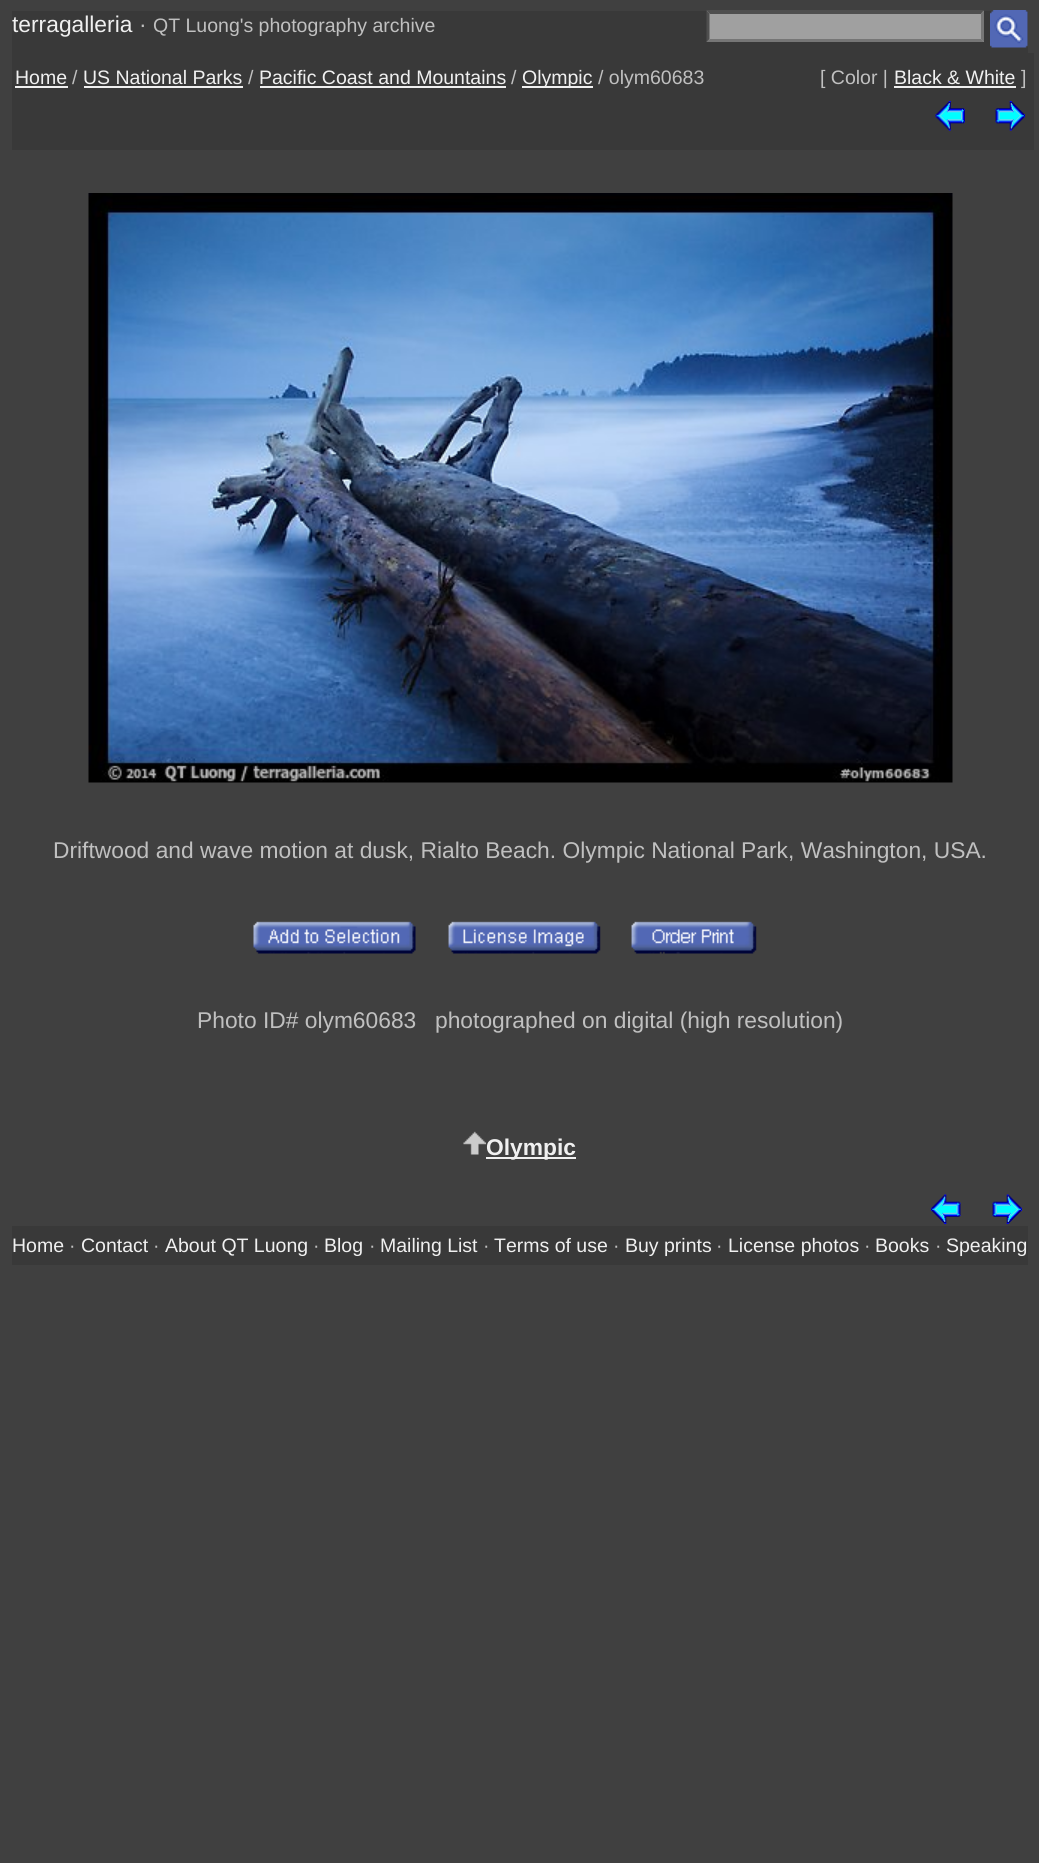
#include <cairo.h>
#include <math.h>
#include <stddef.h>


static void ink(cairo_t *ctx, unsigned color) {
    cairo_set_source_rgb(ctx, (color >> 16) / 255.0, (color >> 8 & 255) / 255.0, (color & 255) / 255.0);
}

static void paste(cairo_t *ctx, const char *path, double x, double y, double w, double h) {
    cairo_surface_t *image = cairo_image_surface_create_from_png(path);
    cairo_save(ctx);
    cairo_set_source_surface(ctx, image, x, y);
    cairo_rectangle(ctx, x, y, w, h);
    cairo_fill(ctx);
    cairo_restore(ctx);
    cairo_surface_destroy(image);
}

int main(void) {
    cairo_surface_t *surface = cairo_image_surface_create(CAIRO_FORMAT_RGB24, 1039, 1863);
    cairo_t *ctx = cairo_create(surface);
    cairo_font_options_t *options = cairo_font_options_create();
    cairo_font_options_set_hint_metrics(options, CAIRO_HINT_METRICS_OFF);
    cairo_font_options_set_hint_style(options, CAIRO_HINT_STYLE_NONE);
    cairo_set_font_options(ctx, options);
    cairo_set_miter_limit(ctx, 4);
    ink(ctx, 0x404040);
    cairo_paint(ctx);
    ink(ctx, 0x393939);
    cairo_rectangle(ctx, 12, 11, 1016, 42);
    cairo_fill(ctx);
    cairo_select_font_face(ctx, "Liberation Sans", CAIRO_FONT_SLANT_NORMAL, CAIRO_FONT_WEIGHT_NORMAL);
    cairo_set_font_size(ctx, 22.8);
    ink(ctx, 0xF0F0F0);
    cairo_move_to(ctx, 12, 32);
    cairo_show_text(ctx, "terragalleria");
    ink(ctx, 0xC0C0C0);
    cairo_move_to(ctx, 139, 32);
    cairo_show_text(ctx, "·");
    cairo_set_font_size(ctx, 19.5);
    cairo_move_to(ctx, 153, 32);
    cairo_show_text(ctx, "QT Luong's photography archive");
    ink(ctx, 0xA0A0A0);
    cairo_rectangle(ctx, 707, 11, 277, 31);
    cairo_fill(ctx);
    ink(ctx, 0x4F4F4F);
    cairo_new_path(ctx);
    cairo_move_to(ctx, 706, 10);
    cairo_line_to(ctx, 984, 10);
    cairo_line_to(ctx, 981, 14);
    cairo_line_to(ctx, 710, 14);
    cairo_close_path(ctx);
    cairo_fill(ctx);
    ink(ctx, 0x767676);
    cairo_new_path(ctx);
    cairo_move_to(ctx, 984, 10.5);
    cairo_line_to(ctx, 984, 42);
    cairo_line_to(ctx, 981, 39);
    cairo_line_to(ctx, 981, 13.5);
    cairo_close_path(ctx);
    cairo_fill(ctx);
    cairo_new_path(ctx);
    cairo_move_to(ctx, 984, 42);
    cairo_line_to(ctx, 706, 42);
    cairo_line_to(ctx, 710, 39);
    cairo_line_to(ctx, 981, 39);
    cairo_close_path(ctx);
    cairo_fill(ctx);
    ink(ctx, 0x4F4F4F);
    cairo_new_path(ctx);
    cairo_move_to(ctx, 706.5, 42);
    cairo_line_to(ctx, 706.5, 10.5);
    cairo_line_to(ctx, 709.5, 13.5);
    cairo_line_to(ctx, 709.5, 39);
    cairo_close_path(ctx);
    cairo_fill(ctx);
    paste(ctx, "media/1.png", 990, 10, 38, 38);
    ink(ctx, 0x393939);
    cairo_rectangle(ctx, 12, 53, 1022, 97);
    cairo_fill(ctx);
    ink(ctx, 0xF0F0F0);
    cairo_move_to(ctx, 15, 84);
    cairo_show_text(ctx, "Home");
    cairo_rectangle(ctx, 15, 86, 53, 2);
    cairo_fill(ctx);
    ink(ctx, 0xC0C0C0);
    cairo_move_to(ctx, 72, 84);
    cairo_show_text(ctx, "/");
    ink(ctx, 0xF0F0F0);
    cairo_move_to(ctx, 83, 84);
    cairo_show_text(ctx, "US National Parks");
    cairo_rectangle(ctx, 84, 86, 159, 2);
    cairo_fill(ctx);
    ink(ctx, 0xC0C0C0);
    cairo_move_to(ctx, 248, 84);
    cairo_show_text(ctx, "/");
    ink(ctx, 0xF0F0F0);
    cairo_move_to(ctx, 259, 84);
    cairo_show_text(ctx, "Pacific Coast and Mountains");
    cairo_rectangle(ctx, 260, 86, 246, 2);
    cairo_fill(ctx);
    ink(ctx, 0xC0C0C0);
    cairo_move_to(ctx, 511, 84);
    cairo_show_text(ctx, "/");
    ink(ctx, 0xF0F0F0);
    cairo_rectangle(ctx, 522, 86, 71, 2);
    cairo_fill(ctx);
    cairo_move_to(ctx, 522, 84);
    cairo_show_text(ctx, "Olympic");
    ink(ctx, 0xC0C0C0);
    cairo_move_to(ctx, 598, 84);
    cairo_show_text(ctx, "/ olym60683");
    cairo_move_to(ctx, 820, 84);
    cairo_show_text(ctx, "[ Color |");
    ink(ctx, 0xF0F0F0);
    cairo_move_to(ctx, 894, 84);
    cairo_show_text(ctx, "Black & White");
    cairo_rectangle(ctx, 894, 86, 122, 2);
    cairo_fill(ctx);
    ink(ctx, 0xC0C0C0);
    cairo_move_to(ctx, 1021, 84);
    cairo_show_text(ctx, "]");
    paste(ctx, "media/2.png", 935, 101, 30, 30);
    paste(ctx, "media/3.png", 995, 101, 30, 30);
    paste(ctx, "media/4.png", 88, 193, 865, 590);
    cairo_set_font_size(ctx, 22.8);
    cairo_move_to(ctx, 53, 858);
    cairo_show_text(ctx, "Driftwood and wave motion at dusk, Rialto Beach. Olympic National Park, Washington, USA.");
    paste(ctx, "media/5.png", 253, 921, 163, 33);
    paste(ctx, "media/6.png", 448, 921, 153, 33);
    paste(ctx, "media/7.png", 631, 921, 126, 33);
    cairo_move_to(ctx, 197, 1028);
    cairo_show_text(ctx, "Photo ID# olym60683");
    cairo_move_to(ctx, 435, 1028);
    cairo_show_text(ctx, "photographed on digital (high resolution)");
    paste(ctx, "media/8.png", 463, 1131, 23, 24);
    ink(ctx, 0xF0F0F0);
    cairo_rectangle(ctx, 486, 1157, 90, 2);
    cairo_fill(ctx);
    cairo_select_font_face(ctx, "Liberation Sans", CAIRO_FONT_SLANT_NORMAL, CAIRO_FONT_WEIGHT_BOLD);
    cairo_move_to(ctx, 486, 1155);
    cairo_show_text(ctx, "Olympic");
    paste(ctx, "media/9.png", 931, 1194, 30, 30);
    paste(ctx, "media/10.png", 992, 1194, 30, 30);
    ink(ctx, 0x393939);
    cairo_rectangle(ctx, 12, 1226, 1016, 39);
    cairo_fill(ctx);
    cairo_select_font_face(ctx, "Liberation Sans", CAIRO_FONT_SLANT_NORMAL, CAIRO_FONT_WEIGHT_NORMAL);
    cairo_set_font_size(ctx, 19.5);
    ink(ctx, 0xF0F0F0);
    cairo_move_to(ctx, 12, 1252);
    cairo_show_text(ctx, "Home");
    ink(ctx, 0xC0C0C0);
    cairo_move_to(ctx, 69, 1252);
    cairo_show_text(ctx, "·");
    ink(ctx, 0xF0F0F0);
    cairo_move_to(ctx, 81, 1252);
    cairo_show_text(ctx, "Contact");
    ink(ctx, 0xC0C0C0);
    cairo_move_to(ctx, 153, 1252);
    cairo_show_text(ctx, "·");
    ink(ctx, 0xF0F0F0);
    cairo_move_to(ctx, 165, 1252);
    cairo_show_text(ctx, "About QT Luong");
    ink(ctx, 0xC0C0C0);
    cairo_move_to(ctx, 313, 1252);
    cairo_show_text(ctx, "·");
    ink(ctx, 0xF0F0F0);
    cairo_move_to(ctx, 324, 1252);
    cairo_show_text(ctx, "Blog");
    ink(ctx, 0xC0C0C0);
    cairo_move_to(ctx, 369, 1252);
    cairo_show_text(ctx, "·");
    ink(ctx, 0xF0F0F0);
    cairo_move_to(ctx, 380, 1252);
    cairo_show_text(ctx, "Mailing List");
    ink(ctx, 0xC0C0C0);
    cairo_move_to(ctx, 483, 1252);
    cairo_show_text(ctx, "·");
    ink(ctx, 0xF0F0F0);
    cairo_move_to(ctx, 494, 1252);
    cairo_show_text(ctx, "Terms of use");
    ink(ctx, 0xC0C0C0);
    cairo_move_to(ctx, 613, 1252);
    cairo_show_text(ctx, "·");
    ink(ctx, 0xF0F0F0);
    cairo_move_to(ctx, 625, 1252);
    cairo_show_text(ctx, "Buy prints");
    ink(ctx, 0xC0C0C0);
    cairo_move_to(ctx, 716, 1252);
    cairo_show_text(ctx, "·");
    ink(ctx, 0xF0F0F0);
    cairo_move_to(ctx, 728, 1252);
    cairo_show_text(ctx, "License photos");
    ink(ctx, 0xC0C0C0);
    cairo_move_to(ctx, 864, 1252);
    cairo_show_text(ctx, "·");
    ink(ctx, 0xF0F0F0);
    cairo_move_to(ctx, 875, 1252);
    cairo_show_text(ctx, "Books");
    ink(ctx, 0xC0C0C0);
    cairo_move_to(ctx, 935, 1252);
    cairo_show_text(ctx, "·");
    ink(ctx, 0xF0F0F0);
    cairo_move_to(ctx, 946, 1252);
    cairo_show_text(ctx, "Speaking");
    cairo_surface_write_to_png(surface, "image.png");
    cairo_font_options_destroy(options);
    cairo_destroy(ctx);
    cairo_surface_destroy(surface);
    return 0;
}
